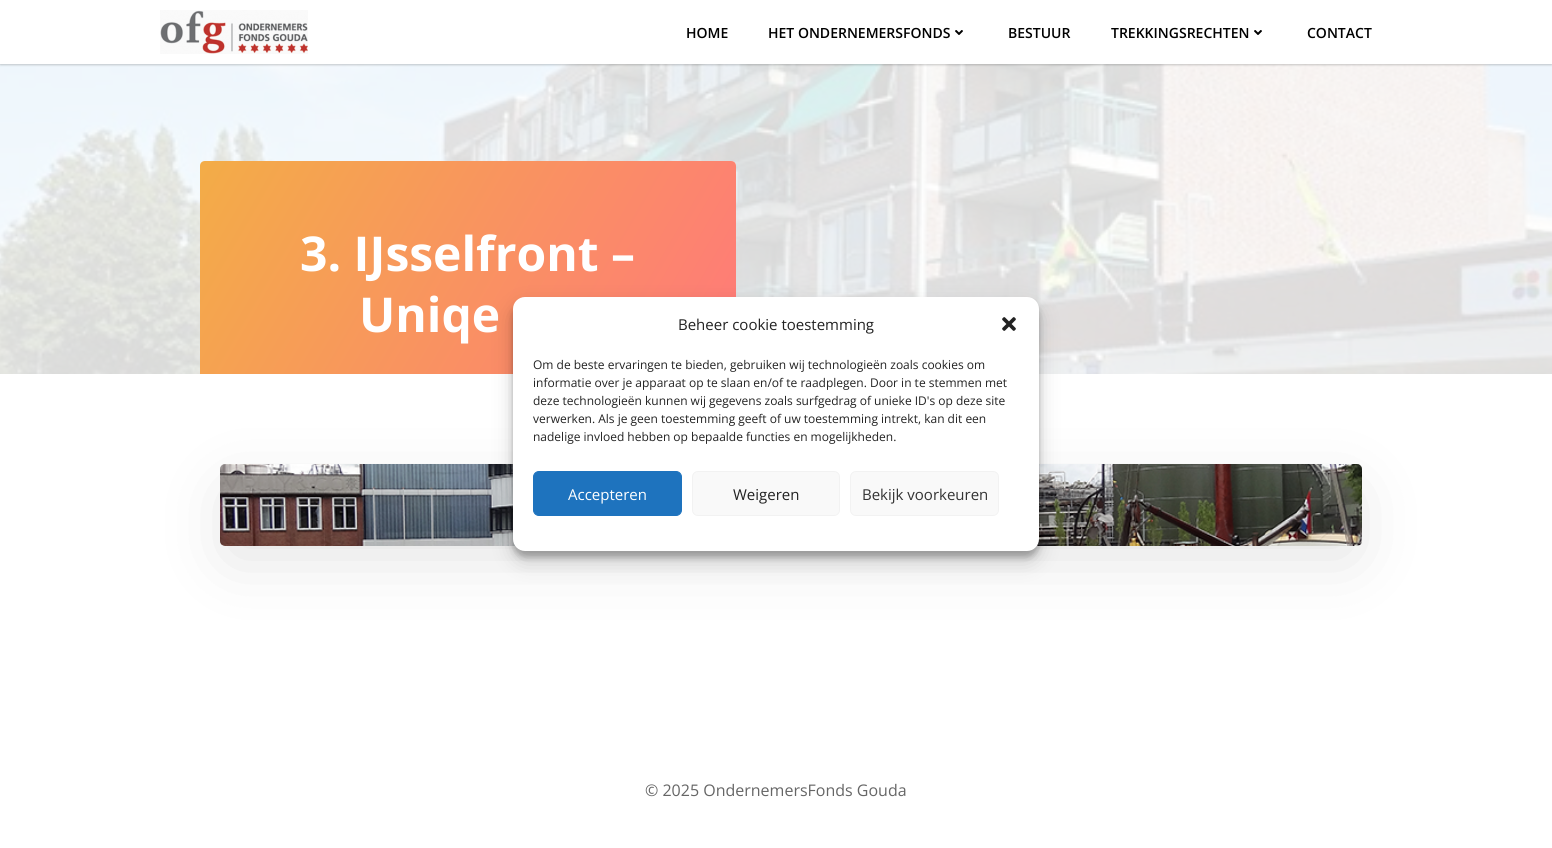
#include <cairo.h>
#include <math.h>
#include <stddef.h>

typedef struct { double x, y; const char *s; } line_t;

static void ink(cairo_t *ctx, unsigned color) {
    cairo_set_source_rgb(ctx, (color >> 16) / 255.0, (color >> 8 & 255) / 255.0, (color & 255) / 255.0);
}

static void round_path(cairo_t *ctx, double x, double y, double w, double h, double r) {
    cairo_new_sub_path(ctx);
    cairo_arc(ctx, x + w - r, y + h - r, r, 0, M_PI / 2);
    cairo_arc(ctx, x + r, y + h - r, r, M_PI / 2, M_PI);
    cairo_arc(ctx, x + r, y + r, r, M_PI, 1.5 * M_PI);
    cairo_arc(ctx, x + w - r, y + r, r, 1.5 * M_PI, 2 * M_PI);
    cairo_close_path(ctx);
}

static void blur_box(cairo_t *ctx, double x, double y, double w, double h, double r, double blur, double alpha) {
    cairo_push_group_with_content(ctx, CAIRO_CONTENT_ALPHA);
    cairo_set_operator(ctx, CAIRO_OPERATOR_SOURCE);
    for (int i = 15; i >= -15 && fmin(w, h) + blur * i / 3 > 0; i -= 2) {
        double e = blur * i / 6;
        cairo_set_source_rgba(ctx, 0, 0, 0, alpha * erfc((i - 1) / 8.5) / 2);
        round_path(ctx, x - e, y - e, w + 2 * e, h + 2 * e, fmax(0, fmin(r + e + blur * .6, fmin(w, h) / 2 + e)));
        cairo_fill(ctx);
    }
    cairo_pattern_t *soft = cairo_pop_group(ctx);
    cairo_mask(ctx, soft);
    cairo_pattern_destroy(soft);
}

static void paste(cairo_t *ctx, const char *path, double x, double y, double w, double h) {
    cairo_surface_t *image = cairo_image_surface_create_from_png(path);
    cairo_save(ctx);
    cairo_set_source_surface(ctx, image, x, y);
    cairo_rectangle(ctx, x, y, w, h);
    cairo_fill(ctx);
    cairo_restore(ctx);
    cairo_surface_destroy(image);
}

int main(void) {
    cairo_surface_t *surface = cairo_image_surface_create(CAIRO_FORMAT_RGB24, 1552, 848);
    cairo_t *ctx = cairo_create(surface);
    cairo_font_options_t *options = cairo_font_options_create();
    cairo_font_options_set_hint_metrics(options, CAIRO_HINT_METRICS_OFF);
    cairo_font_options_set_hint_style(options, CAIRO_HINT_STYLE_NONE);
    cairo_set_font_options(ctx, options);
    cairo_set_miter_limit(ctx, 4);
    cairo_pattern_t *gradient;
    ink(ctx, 0xFFFFFF);
    cairo_paint(ctx);
    paste(ctx, "media/3.png", 0, 64, 1552, 310);
    ink(ctx, 0x000000);
    blur_box(ctx, 0, 1, 1552, 64, 0, 1, 0.2);
    ink(ctx, 0xFFFFFF);
    cairo_rectangle(ctx, 0, 0, 1552, 64);
    cairo_fill(ctx);
    paste(ctx, "media/1.png", 160, 10, 148, 44);
    cairo_select_font_face(ctx, "Open Sans SemiBold", CAIRO_FONT_SLANT_NORMAL, CAIRO_FONT_WEIGHT_NORMAL);
    cairo_set_font_size(ctx, 14);
    ink(ctx, 0x000000);
    cairo_move_to(ctx, 686, 38);
    cairo_show_text(ctx, "HOME");
    cairo_move_to(ctx, 768, 38);
    cairo_show_text(ctx, "HET ONDERNEMERSFONDS");
    paste(ctx, "media/2.png", 955, 30, 8, 5);
    cairo_move_to(ctx, 1008, 38);
    cairo_show_text(ctx, "BESTUUR");
    cairo_move_to(ctx, 1111, 38);
    cairo_show_text(ctx, "TREKKINGSRECHTEN");
    paste(ctx, "media/2.png", 1254, 30, 8, 5);
    cairo_move_to(ctx, 1307, 38);
    cairo_show_text(ctx, "CONTACT");
    ink(ctx, 0xFFFFFF);
    cairo_new_path(ctx);
    cairo_move_to(ctx, 205, 161);
    cairo_line_to(ctx, 731, 161);
    cairo_curve_to(ctx, 734, 161, 736, 163, 736, 166);
    cairo_line_to(ctx, 736, 374);
    cairo_line_to(ctx, 200, 374);
    cairo_line_to(ctx, 200, 166);
    cairo_curve_to(ctx, 200, 163, 202, 161, 205, 161);
    cairo_close_path(ctx);
    cairo_fill(ctx);
    gradient = cairo_pattern_create_linear(716, 411, 220, 124);
    cairo_pattern_add_color_stop_rgba(gradient, 0, 1, 0.345, 0.345, 0.8);
    cairo_pattern_add_color_stop_rgba(gradient, 1, 0.941, 0.596, 0.098, 0.8);
    cairo_set_source(ctx, gradient);
    cairo_pattern_destroy(gradient);
    cairo_new_path(ctx);
    cairo_move_to(ctx, 205, 161);
    cairo_line_to(ctx, 731, 161);
    cairo_curve_to(ctx, 734, 161, 736, 163, 736, 166);
    cairo_line_to(ctx, 736, 374);
    cairo_line_to(ctx, 200, 374);
    cairo_line_to(ctx, 200, 166);
    cairo_curve_to(ctx, 200, 163, 202, 161, 205, 161);
    cairo_close_path(ctx);
    cairo_fill(ctx);
    cairo_select_font_face(ctx, "Open Sans", CAIRO_FONT_SLANT_NORMAL, CAIRO_FONT_WEIGHT_BOLD);
    cairo_set_font_size(ctx, 48);
    ink(ctx, 0xFFFFFF);
    cairo_move_to(ctx, 300, 271);
    cairo_show_text(ctx, "3. IJsselfront –");
    cairo_move_to(ctx, 359, 332);
    cairo_show_text(ctx, "Uniqe");
    ink(ctx, 0x000000);
    blur_box(ctx, 230, 493, 1122, 62, 0, 35.5, 0.12);
    paste(ctx, "media/4.png", 220, 464, 1142, 82);
    cairo_select_font_face(ctx, "Open Sans", CAIRO_FONT_SLANT_NORMAL, CAIRO_FONT_WEIGHT_NORMAL);
    cairo_set_font_size(ctx, 16);
    ink(ctx, 0x666666);
    cairo_move_to(ctx, 645, 796);
    cairo_show_text(ctx, "© 2025 OndernemersFonds Gouda");
    ink(ctx, 0x000000);
    blur_box(ctx, 513, 303, 526, 254, 12, 3, 0.23);
    blur_box(ctx, 513, 307, 526, 254, 12, 10, 0.19);
    ink(ctx, 0xFFFFFF);
    round_path(ctx, 513, 297, 526, 254, 12);
    cairo_fill(ctx);
    cairo_set_font_size(ctx, 15);
    ink(ctx, 0x222222);
    cairo_move_to(ctx, 678, 330);
    cairo_show_text(ctx, "Beheer cookie toestemming");
    paste(ctx, "media/5.png", 1002, 317, 14, 14);
    cairo_set_font_size(ctx, 12);
    {
        static const line_t items[] = {
            {533, 369, "Om de beste ervaringen te bieden, gebruiken wij technologieën zoals cookies om"},
            {533, 387, "informatie over je apparaat op te slaan en/of te raadplegen. Door in te stemmen met"},
            {533, 405, "deze technologieën kunnen wij gegevens zoals surfgedrag of unieke ID's op deze site"},
            {533, 423, "verwerken. Als je geen toestemming geeft of uw toestemming intrekt, kan dit een"},
            {533, 441, "nadelige invloed hebben op bepaalde functies en mogelijkheden."},
        };
        for (size_t i = 0; i < sizeof items / sizeof *items; i++) {
            cairo_move_to(ctx, items[i].x, items[i].y);
            cairo_show_text(ctx, items[i].s);
        }
    }
    ink(ctx, 0x1E73BE);
    round_path(ctx, 533.5, 471.5, 148, 44, 5.5);
    cairo_fill_preserve(ctx);
    cairo_set_line_width(ctx, 1);
    cairo_stroke(ctx);
    cairo_set_font_size(ctx, 15);
    ink(ctx, 0xFFFFFF);
    cairo_move_to(ctx, 568, 500);
    cairo_show_text(ctx, "Accepteren");
    ink(ctx, 0xF9F9F9);
    round_path(ctx, 692.5, 471.5, 147, 44, 5.5);
    cairo_fill_preserve(ctx);
    ink(ctx, 0xF2F2F2);
    cairo_stroke(ctx);
    ink(ctx, 0x222222);
    cairo_move_to(ctx, 733, 500);
    cairo_show_text(ctx, "Weigeren");
    ink(ctx, 0xF9F9F9);
    round_path(ctx, 850.5, 471.5, 148, 44, 5.5);
    cairo_fill_preserve(ctx);
    ink(ctx, 0xF2F2F2);
    cairo_stroke(ctx);
    ink(ctx, 0x333333);
    cairo_move_to(ctx, 862, 500);
    cairo_show_text(ctx, "Bekijk voorkeuren");
    cairo_surface_write_to_png(surface, "image.png");
    cairo_font_options_destroy(options);
    cairo_destroy(ctx);
    cairo_surface_destroy(surface);
    return 0;
}
